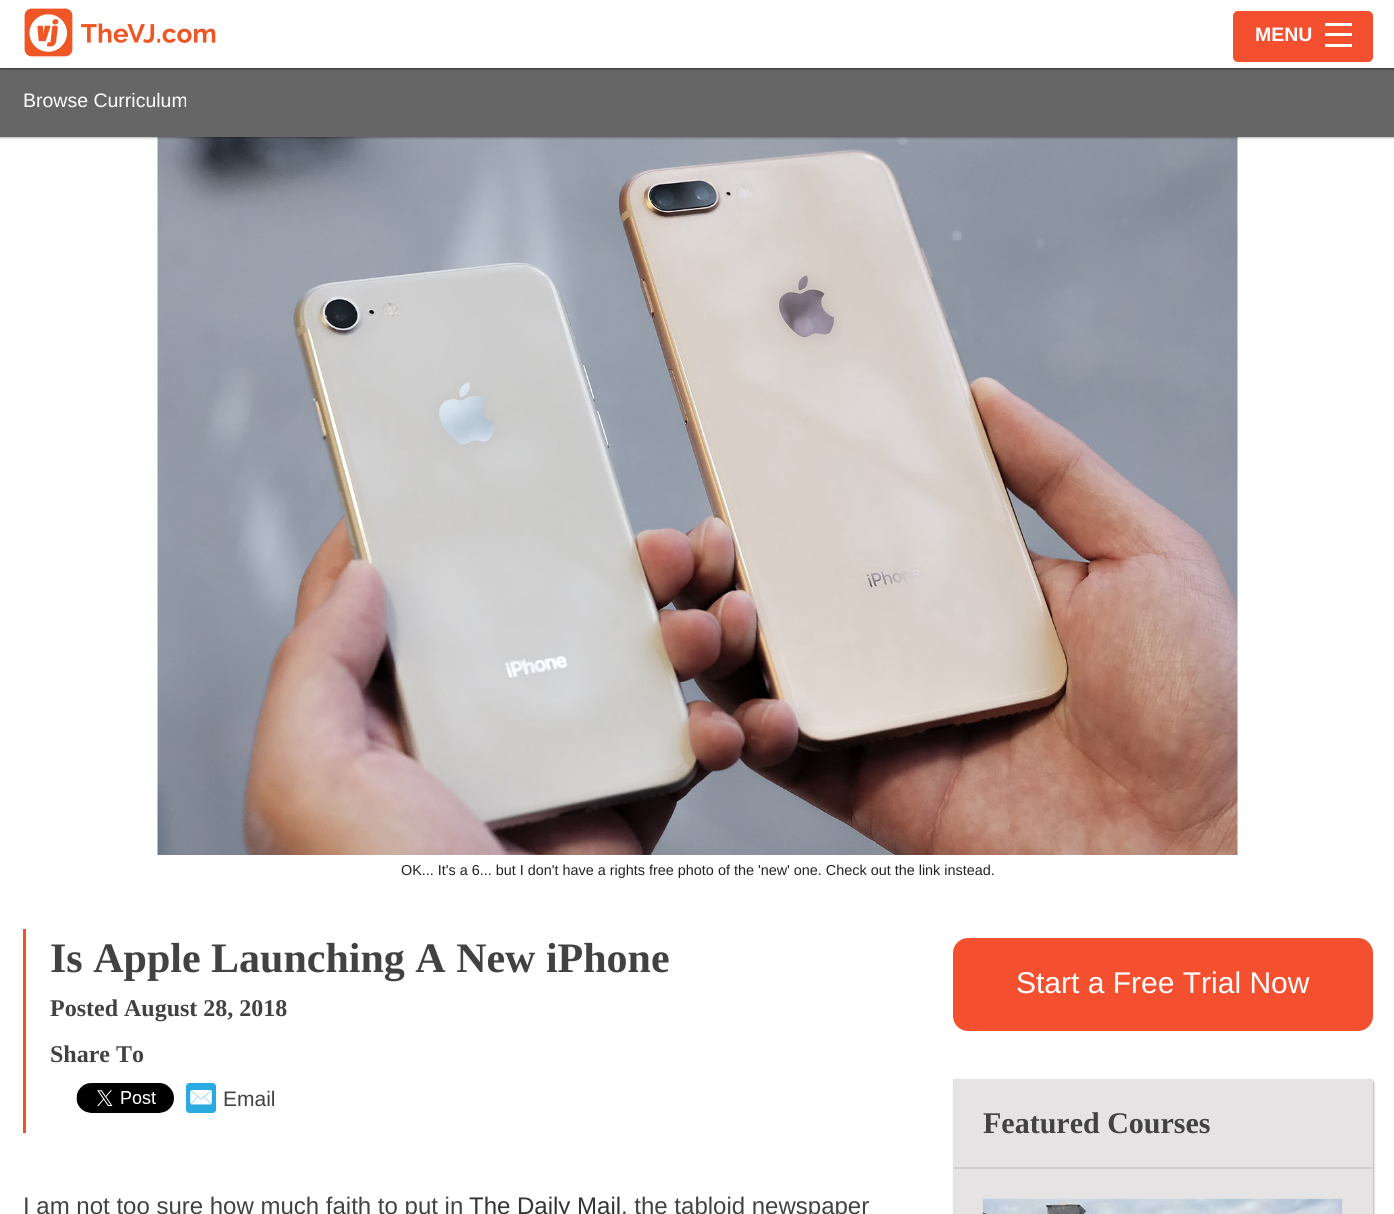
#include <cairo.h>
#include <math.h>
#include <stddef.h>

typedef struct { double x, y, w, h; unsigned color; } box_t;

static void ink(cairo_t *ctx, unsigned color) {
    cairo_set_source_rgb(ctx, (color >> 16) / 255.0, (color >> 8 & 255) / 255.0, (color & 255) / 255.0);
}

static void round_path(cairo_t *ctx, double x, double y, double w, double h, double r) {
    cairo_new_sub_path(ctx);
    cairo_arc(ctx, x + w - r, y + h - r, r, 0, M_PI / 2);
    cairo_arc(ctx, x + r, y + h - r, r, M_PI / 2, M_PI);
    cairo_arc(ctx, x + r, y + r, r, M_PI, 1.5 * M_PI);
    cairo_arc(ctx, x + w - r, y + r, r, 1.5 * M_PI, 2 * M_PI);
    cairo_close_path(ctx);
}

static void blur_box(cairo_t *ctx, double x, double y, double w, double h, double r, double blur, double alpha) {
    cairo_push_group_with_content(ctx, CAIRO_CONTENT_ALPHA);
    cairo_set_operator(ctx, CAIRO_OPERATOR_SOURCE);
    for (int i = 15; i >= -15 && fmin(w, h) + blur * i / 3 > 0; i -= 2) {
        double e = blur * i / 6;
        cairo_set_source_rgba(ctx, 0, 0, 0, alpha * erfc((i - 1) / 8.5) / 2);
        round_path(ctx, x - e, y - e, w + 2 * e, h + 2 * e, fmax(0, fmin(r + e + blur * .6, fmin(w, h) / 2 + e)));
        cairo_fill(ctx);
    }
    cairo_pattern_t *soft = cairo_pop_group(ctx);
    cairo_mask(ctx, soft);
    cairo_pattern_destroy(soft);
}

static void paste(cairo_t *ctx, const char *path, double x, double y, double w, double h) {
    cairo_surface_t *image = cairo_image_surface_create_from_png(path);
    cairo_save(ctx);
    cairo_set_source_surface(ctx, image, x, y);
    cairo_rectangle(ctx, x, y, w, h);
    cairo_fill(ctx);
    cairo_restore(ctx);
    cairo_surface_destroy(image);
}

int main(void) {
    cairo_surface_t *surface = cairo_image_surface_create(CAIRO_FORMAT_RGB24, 1394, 1214);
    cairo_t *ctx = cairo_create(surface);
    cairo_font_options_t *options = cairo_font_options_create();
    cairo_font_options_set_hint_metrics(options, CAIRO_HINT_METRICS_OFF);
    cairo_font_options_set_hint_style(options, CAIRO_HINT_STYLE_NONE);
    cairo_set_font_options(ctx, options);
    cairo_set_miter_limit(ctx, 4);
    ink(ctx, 0xFFFFFF);
    cairo_paint(ctx);
    paste(ctx, "media/2.png", 157, 137, 1081, 718);
    ink(ctx, 0x000000);
    blur_box(ctx, 0, 69, 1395, 69, 0, 1, 0.3);
    ink(ctx, 0x666666);
    cairo_rectangle(ctx, 0, 68, 1394, 69);
    cairo_fill(ctx);
    ink(ctx, 0x000000);
    blur_box(ctx, 0, 2, 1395, 67, 0, 1, 0.5);
    ink(ctx, 0xFFFFFF);
    cairo_rectangle(ctx, 0, 0, 1394, 68);
    cairo_fill(ctx);
    paste(ctx, "media/1.png", 24, 8, 192, 49);
    ink(ctx, 0xF45030);
    round_path(ctx, 1233, 11, 140, 51, 5);
    cairo_fill(ctx);
    cairo_select_font_face(ctx, "Liberation Sans", CAIRO_FONT_SLANT_NORMAL, CAIRO_FONT_WEIGHT_BOLD);
    cairo_set_font_size(ctx, 19.5);
    ink(ctx, 0xFFFFFF);
    cairo_move_to(ctx, 1255, 41);
    cairo_show_text(ctx, "MENU");
    {
        static const box_t items[] = {
            {1325, 44, 27, 3, 0xFFFFFF},
            {1325, 33, 27, 3, 0xFFFFFF},
            {1325, 23, 27, 3, 0xFFFFFF},
        };
        for (size_t i = 0; i < sizeof items / sizeof *items; i++) {
            ink(ctx, items[i].color);
            cairo_rectangle(ctx, items[i].x, items[i].y, items[i].w, items[i].h);
            cairo_fill(ctx);
        }
    }
    cairo_select_font_face(ctx, "Liberation Sans", CAIRO_FONT_SLANT_NORMAL, CAIRO_FONT_WEIGHT_NORMAL);
    cairo_move_to(ctx, 23, 107);
    cairo_show_text(ctx, "Browse Curriculum");
    cairo_set_font_size(ctx, 14.4);
    ink(ctx, 0x222222);
    cairo_move_to(ctx, 401, 875);
    cairo_show_text(ctx, "OK... It's a 6... but I don't have a rights free photo of the 'new' one. Check out the link instead.");
    ink(ctx, 0xF45030);
    cairo_rectangle(ctx, 23, 929, 3, 204);
    cairo_fill(ctx);
    cairo_select_font_face(ctx, "Liberation Serif", CAIRO_FONT_SLANT_NORMAL, CAIRO_FONT_WEIGHT_BOLD);
    cairo_set_font_size(ctx, 42);
    ink(ctx, 0x424242);
    cairo_move_to(ctx, 50, 972);
    cairo_show_text(ctx, "Is Apple Launching A New iPhone");
    cairo_set_font_size(ctx, 24);
    cairo_move_to(ctx, 50, 1016);
    cairo_show_text(ctx, "Posted August 28, 2018");
    cairo_move_to(ctx, 50, 1062);
    cairo_show_text(ctx, "Share To");
    paste(ctx, "media/3.png", 76, 1083, 98, 30);
    paste(ctx, "media/4.png", 186, 1083, 30, 30);
    cairo_select_font_face(ctx, "Liberation Sans", CAIRO_FONT_SLANT_NORMAL, CAIRO_FONT_WEIGHT_NORMAL);
    cairo_set_font_size(ctx, 21);
    cairo_move_to(ctx, 223, 1106);
    cairo_show_text(ctx, "Email");
    cairo_set_font_size(ctx, 24);
    cairo_move_to(ctx, 23, 1214);
    cairo_show_text(ctx, "I am not too sure how much faith to put in");
    ink(ctx, 0x333333);
    cairo_move_to(ctx, 469, 1214);
    cairo_show_text(ctx, "The Daily Mail");
    ink(ctx, 0x424242);
    cairo_move_to(ctx, 621, 1214);
    cairo_show_text(ctx, ", the tabloid newspaper");
    ink(ctx, 0xF45030);
    round_path(ctx, 954, 939, 418, 91, 14);
    cairo_fill_preserve(ctx);
    cairo_stroke(ctx);
    cairo_set_font_size(ctx, 30);
    ink(ctx, 0xFFFFFF);
    cairo_move_to(ctx, 1016, 993);
    cairo_show_text(ctx, "Start a Free Trial Now");
    ink(ctx, 0x000000);
    blur_box(ctx, 954, 1080, 420, 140, 3, 1, 0.3);
    ink(ctx, 0xE5E3E3);
    cairo_rectangle(ctx, 953, 1079, 420, 88);
    cairo_fill(ctx);
    ink(ctx, 0xCFCFCF);
    cairo_rectangle(ctx, 953, 1167, 420, 2);
    cairo_fill(ctx);
    cairo_select_font_face(ctx, "Liberation Serif", CAIRO_FONT_SLANT_NORMAL, CAIRO_FONT_WEIGHT_BOLD);
    ink(ctx, 0x424242);
    cairo_move_to(ctx, 983, 1133);
    cairo_show_text(ctx, "Featured Courses");
    ink(ctx, 0xE5E3E3);
    cairo_rectangle(ctx, 953, 1169, 420, 45);
    cairo_fill(ctx);
    paste(ctx, "media/5.png", 982, 1198, 361, 16);
    cairo_surface_write_to_png(surface, "image.png");
    cairo_font_options_destroy(options);
    cairo_destroy(ctx);
    cairo_surface_destroy(surface);
    return 0;
}
